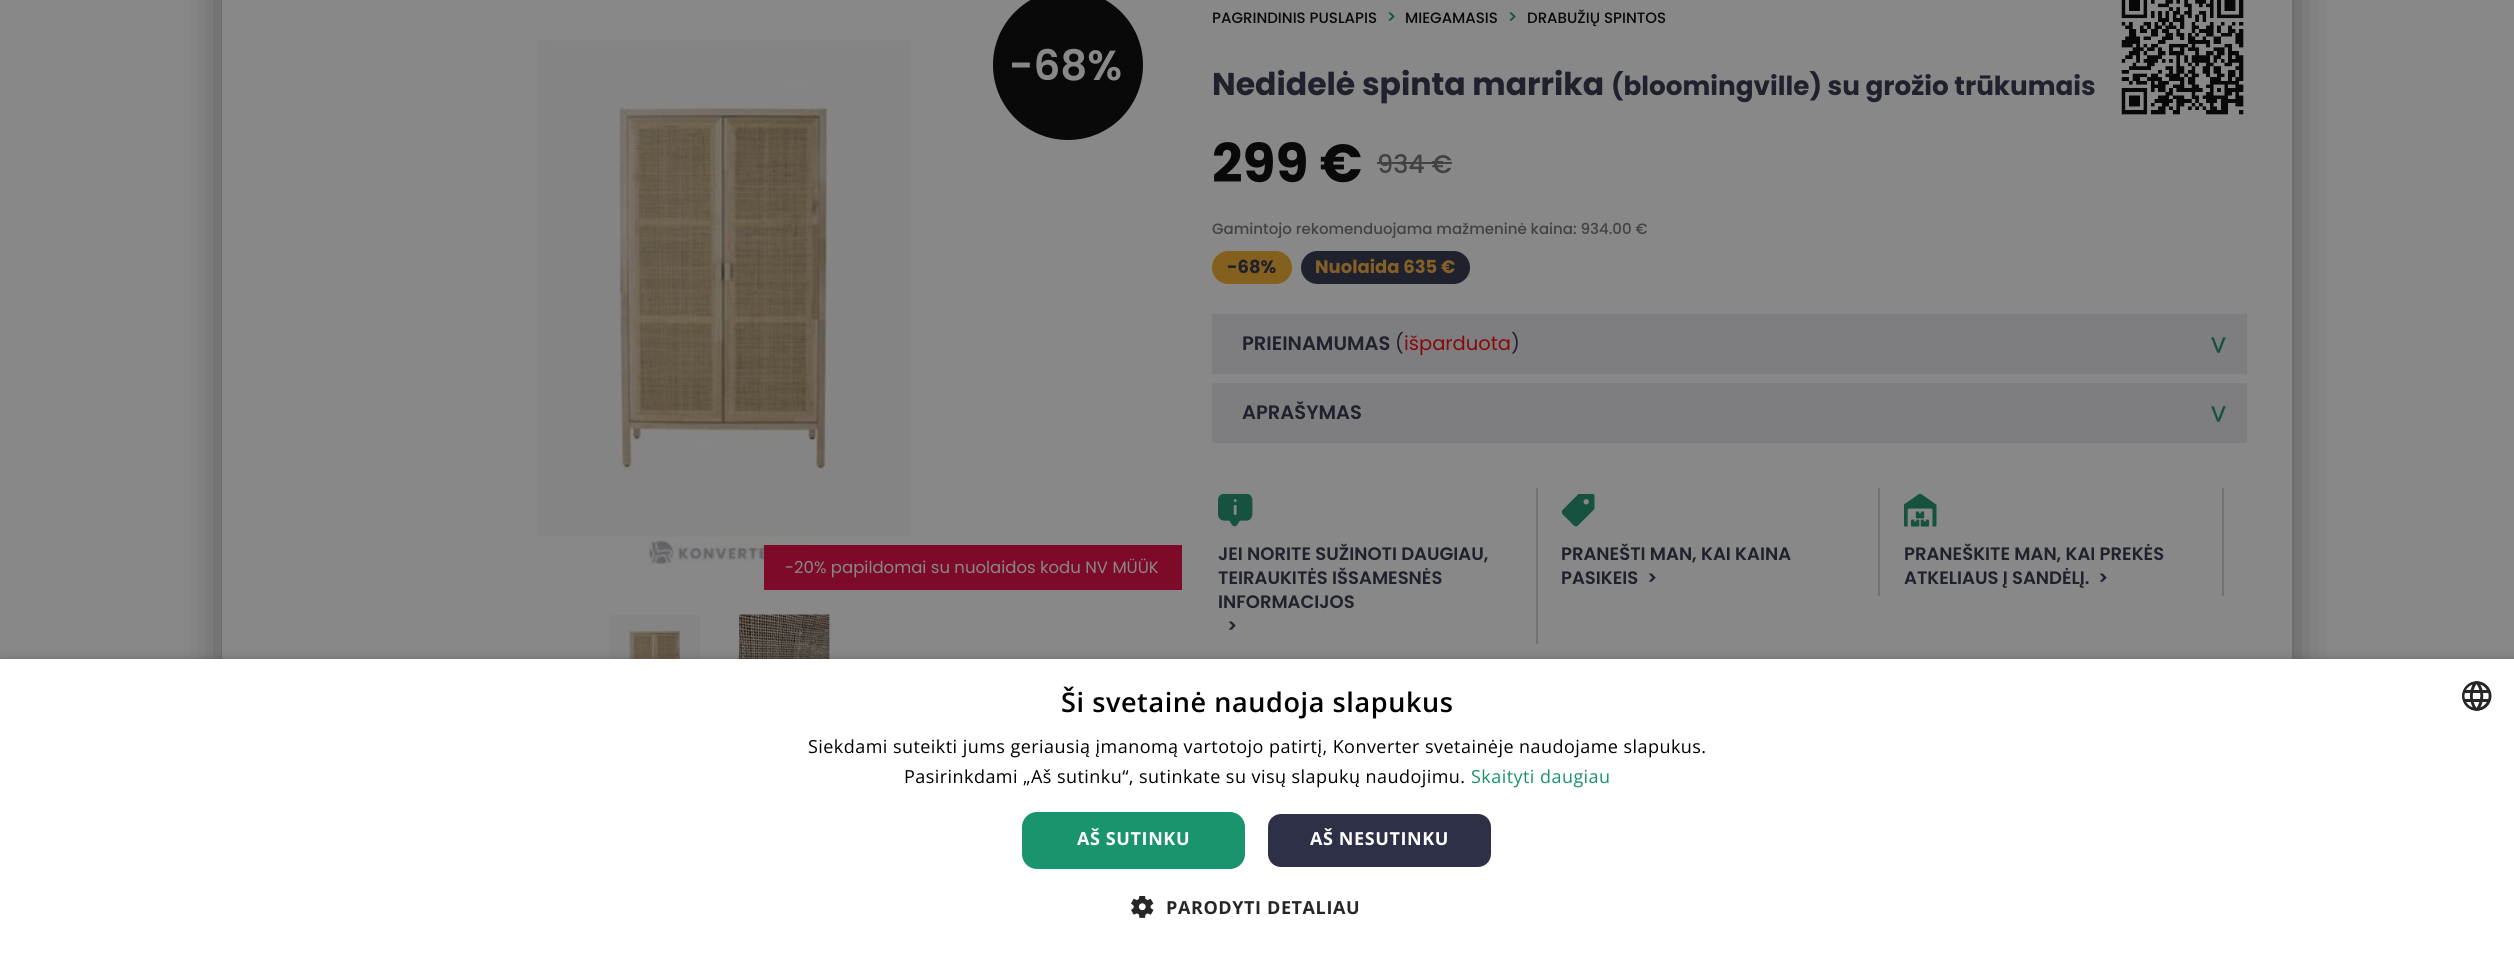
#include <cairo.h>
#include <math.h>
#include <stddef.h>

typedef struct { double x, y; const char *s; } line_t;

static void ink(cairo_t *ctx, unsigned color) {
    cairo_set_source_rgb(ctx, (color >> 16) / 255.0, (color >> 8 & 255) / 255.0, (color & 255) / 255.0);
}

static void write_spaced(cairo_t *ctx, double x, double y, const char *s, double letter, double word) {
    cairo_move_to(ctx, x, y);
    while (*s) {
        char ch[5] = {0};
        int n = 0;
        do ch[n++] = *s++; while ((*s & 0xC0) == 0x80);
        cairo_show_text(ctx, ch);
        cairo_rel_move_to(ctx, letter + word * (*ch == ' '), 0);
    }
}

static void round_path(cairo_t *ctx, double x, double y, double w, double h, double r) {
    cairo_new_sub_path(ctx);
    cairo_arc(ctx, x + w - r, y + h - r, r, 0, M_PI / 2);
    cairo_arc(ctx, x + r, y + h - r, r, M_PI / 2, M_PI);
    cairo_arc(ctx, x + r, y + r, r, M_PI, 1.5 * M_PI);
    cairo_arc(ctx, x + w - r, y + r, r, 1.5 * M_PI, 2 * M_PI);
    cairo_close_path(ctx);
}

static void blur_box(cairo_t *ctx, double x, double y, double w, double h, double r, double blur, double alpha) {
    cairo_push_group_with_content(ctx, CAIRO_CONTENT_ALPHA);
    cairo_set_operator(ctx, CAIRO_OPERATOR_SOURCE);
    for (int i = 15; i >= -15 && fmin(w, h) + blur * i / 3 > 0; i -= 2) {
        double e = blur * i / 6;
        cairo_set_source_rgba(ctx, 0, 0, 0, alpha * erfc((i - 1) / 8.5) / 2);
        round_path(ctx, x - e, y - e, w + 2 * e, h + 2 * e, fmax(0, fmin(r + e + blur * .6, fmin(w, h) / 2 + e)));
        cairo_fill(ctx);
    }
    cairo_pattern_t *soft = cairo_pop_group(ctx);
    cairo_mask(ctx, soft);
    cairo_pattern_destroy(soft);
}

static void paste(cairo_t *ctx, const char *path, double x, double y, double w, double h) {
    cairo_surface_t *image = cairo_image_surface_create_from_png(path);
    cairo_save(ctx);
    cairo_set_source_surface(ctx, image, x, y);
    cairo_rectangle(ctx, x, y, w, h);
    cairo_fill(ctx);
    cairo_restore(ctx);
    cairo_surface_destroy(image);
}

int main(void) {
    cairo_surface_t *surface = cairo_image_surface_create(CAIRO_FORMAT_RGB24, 2514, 955);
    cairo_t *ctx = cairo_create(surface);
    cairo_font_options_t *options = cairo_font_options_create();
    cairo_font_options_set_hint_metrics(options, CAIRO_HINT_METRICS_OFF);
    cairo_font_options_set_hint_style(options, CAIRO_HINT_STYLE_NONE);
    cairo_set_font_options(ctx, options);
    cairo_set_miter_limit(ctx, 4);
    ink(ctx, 0x888888);
    cairo_paint(ctx);
    cairo_save(ctx);
    cairo_set_fill_rule(ctx, CAIRO_FILL_RULE_EVEN_ODD);
    cairo_new_path(ctx);
    cairo_move_to(ctx, 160, 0);
    cairo_line_to(ctx, 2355, 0);
    cairo_line_to(ctx, 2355, 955);
    cairo_line_to(ctx, 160, 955);
    cairo_close_path(ctx);
    cairo_move_to(ctx, 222, -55);
    cairo_line_to(ctx, 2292, -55);
    cairo_line_to(ctx, 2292, 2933);
    cairo_line_to(ctx, 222, 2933);
    cairo_close_path(ctx);
    cairo_clip(ctx);
    ink(ctx, 0x222222);
    blur_box(ctx, 233, -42, 2049, 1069, 0, 24, 0.75);
    cairo_restore(ctx);
    ink(ctx, 0x090909);
    cairo_arc(ctx, 1068, 65, 75, 0, 2 * M_PI);
    cairo_fill(ctx);
    cairo_select_font_face(ctx, "Poppins SemiBold", CAIRO_FONT_SLANT_NORMAL, CAIRO_FONT_WEIGHT_NORMAL);
    cairo_set_font_size(ctx, 42);
    ink(ctx, 0x888888);
    cairo_move_to(ctx, 1009, 80);
    cairo_show_text(ctx, "-68%");
    paste(ctx, "media/1.png", 537, 40, 374, 525);
    ink(ctx, 0x7E0A29);
    cairo_rectangle(ctx, 764, 545, 418, 45);
    cairo_fill(ctx);
    cairo_select_font_face(ctx, "Poppins", CAIRO_FONT_SLANT_NORMAL, CAIRO_FONT_WEIGHT_NORMAL);
    cairo_set_font_size(ctx, 16.5);
    ink(ctx, 0x888888);
    cairo_move_to(ctx, 785, 573);
    cairo_show_text(ctx, "-20% papildomai su nuolaidos kodu NV MÜÜK");
    paste(ctx, "media/2.png", 610, 615, 90, 44);
    paste(ctx, "media/3.png", 737, 614, 96, 45);
    cairo_select_font_face(ctx, "Poppins Medium", CAIRO_FONT_SLANT_NORMAL, CAIRO_FONT_WEIGHT_NORMAL);
    cairo_set_font_size(ctx, 15);
    ink(ctx, 0x090909);
    cairo_move_to(ctx, 1212, 23);
    cairo_show_text(ctx, "PAGRINDINIS PUSLAPIS");
    cairo_set_font_size(ctx, 18);
    ink(ctx, 0x165240);
    cairo_move_to(ctx, 1386, 23);
    cairo_show_text(ctx, ">");
    cairo_set_font_size(ctx, 15);
    ink(ctx, 0x090909);
    cairo_move_to(ctx, 1405, 23);
    cairo_show_text(ctx, "MIEGAMASIS");
    cairo_set_font_size(ctx, 18);
    ink(ctx, 0x165240);
    cairo_move_to(ctx, 1507, 23);
    cairo_show_text(ctx, ">");
    cairo_set_font_size(ctx, 15);
    ink(ctx, 0x090909);
    cairo_move_to(ctx, 1527, 23);
    cairo_show_text(ctx, "DRABUŽIŲ SPINTOS");
    cairo_select_font_face(ctx, "Poppins", CAIRO_FONT_SLANT_NORMAL, CAIRO_FONT_WEIGHT_BOLD);
    cairo_set_font_size(ctx, 31.5);
    ink(ctx, 0x1F212C);
    cairo_move_to(ctx, 1212, 95);
    cairo_show_text(ctx, "Nedidelė spinta marrika");
    cairo_set_font_size(ctx, 26.25);
    cairo_move_to(ctx, 1611, 95);
    cairo_show_text(ctx, "(bloomingville) su grožio trūkumais");
    paste(ctx, "media/4.png", 2121, 0, 123, 115);
    cairo_set_font_size(ctx, 53.5);
    ink(ctx, 0x090909);
    cairo_move_to(ctx, 1212, 182);
    cairo_show_text(ctx, "299 €");
    cairo_select_font_face(ctx, "Poppins Medium", CAIRO_FONT_SLANT_NORMAL, CAIRO_FONT_WEIGHT_NORMAL);
    cairo_set_font_size(ctx, 25.5);
    ink(ctx, 0x434242);
    cairo_move_to(ctx, 1377, 173);
    cairo_show_text(ctx, "934 €");
    cairo_rectangle(ctx, 1377, 162, 75, 2);
    cairo_fill(ctx);
    cairo_set_font_size(ctx, 15);
    cairo_move_to(ctx, 1212, 234);
    cairo_show_text(ctx, "Gamintojo rekomenduojama mažmeninė kaina: 934.00 €");
    ink(ctx, 0x84601F);
    round_path(ctx, 1212, 251, 80, 33, 16.5);
    cairo_fill(ctx);
    cairo_select_font_face(ctx, "Poppins", CAIRO_FONT_SLANT_NORMAL, CAIRO_FONT_WEIGHT_BOLD);
    cairo_set_font_size(ctx, 18);
    ink(ctx, 0x1F212C);
    cairo_move_to(ctx, 1227, 273);
    cairo_show_text(ctx, "-68%");
    round_path(ctx, 1301, 251, 169, 33, 16.5);
    cairo_fill(ctx);
    ink(ctx, 0x846028);
    cairo_move_to(ctx, 1315, 273);
    cairo_show_text(ctx, "Nuolaida 635 €");
    ink(ctx, 0x7E7E81);
    cairo_rectangle(ctx, 1212, 314, 1035, 60);
    cairo_fill(ctx);
    cairo_select_font_face(ctx, "Poppins SemiBold", CAIRO_FONT_SLANT_NORMAL, CAIRO_FONT_WEIGHT_NORMAL);
    cairo_set_font_size(ctx, 19.5);
    ink(ctx, 0x1F212C);
    cairo_move_to(ctx, 1242, 350);
    cairo_show_text(ctx, "PRIEINAMUMAS");
    cairo_select_font_face(ctx, "Poppins", CAIRO_FONT_SLANT_NORMAL, CAIRO_FONT_WEIGHT_NORMAL);
    cairo_move_to(ctx, 1395, 350);
    cairo_show_text(ctx, "(");
    ink(ctx, 0x880909);
    cairo_move_to(ctx, 1404, 350);
    cairo_show_text(ctx, "išparduota");
    ink(ctx, 0x1F212C);
    cairo_move_to(ctx, 1511, 350);
    cairo_show_text(ctx, ")");
    cairo_select_font_face(ctx, "DejaVu Sans Mono", CAIRO_FONT_SLANT_NORMAL, CAIRO_FONT_WEIGHT_NORMAL);
    cairo_set_font_size(ctx, 30);
    ink(ctx, 0x165240);
    cairo_save(ctx);
    cairo_translate(ctx, 2209, 336);
    cairo_rotate(ctx, 90 * M_PI / 180);
    cairo_move_to(ctx, 0, 0);
    cairo_show_text(ctx, ">");
    cairo_restore(ctx);
    ink(ctx, 0x7E7E81);
    cairo_rectangle(ctx, 1212, 383, 1035, 60);
    cairo_fill(ctx);
    cairo_select_font_face(ctx, "Poppins SemiBold", CAIRO_FONT_SLANT_NORMAL, CAIRO_FONT_WEIGHT_NORMAL);
    cairo_set_font_size(ctx, 19.5);
    ink(ctx, 0x1F212C);
    cairo_move_to(ctx, 1242, 419);
    cairo_show_text(ctx, "APRAŠYMAS");
    cairo_select_font_face(ctx, "DejaVu Sans Mono", CAIRO_FONT_SLANT_NORMAL, CAIRO_FONT_WEIGHT_NORMAL);
    cairo_set_font_size(ctx, 30);
    ink(ctx, 0x165240);
    cairo_save(ctx);
    cairo_translate(ctx, 2209, 405);
    cairo_rotate(ctx, 90 * M_PI / 180);
    cairo_move_to(ctx, 0, 0);
    cairo_show_text(ctx, ">");
    cairo_restore(ctx);
    ink(ctx, 0x727272);
    cairo_rectangle(ctx, 1536, 488, 2, 156);
    cairo_fill(ctx);
    paste(ctx, "media/5.png", 1218, 494, 35, 33);
    cairo_select_font_face(ctx, "Poppins SemiBold", CAIRO_FONT_SLANT_NORMAL, CAIRO_FONT_WEIGHT_NORMAL);
    cairo_set_font_size(ctx, 18);
    ink(ctx, 0x1F212C);
    {
        static const line_t items[] = {
            {1218, 560, "JEI NORITE SUŽINOTI DAUGIAU,"},
            {1218, 584, "TEIRAUKITĖS IŠSAMESNĖS"},
            {1218, 608, "INFORMACIJOS"},
            {1227, 632, ">"},
        };
        for (size_t i = 0; i < sizeof items / sizeof *items; i++) {
            cairo_move_to(ctx, items[i].x, items[i].y);
            cairo_show_text(ctx, items[i].s);
        }
    }
    ink(ctx, 0x727272);
    cairo_rectangle(ctx, 1878, 488, 2, 108);
    cairo_fill(ctx);
    paste(ctx, "media/6.png", 1562, 494, 33, 33);
    ink(ctx, 0x1F212C);
    {
        static const line_t items[] = {
            {1561, 560, "PRANEŠTI MAN, KAI KAINA"},
            {1561, 584, "PASIKEIS"},
            {1647, 584, ">"},
        };
        for (size_t i = 0; i < sizeof items / sizeof *items; i++) {
            cairo_move_to(ctx, items[i].x, items[i].y);
            cairo_show_text(ctx, items[i].s);
        }
    }
    ink(ctx, 0x727272);
    cairo_rectangle(ctx, 2222, 488, 2, 108);
    cairo_fill(ctx);
    paste(ctx, "media/7.png", 1904, 494, 33, 33);
    ink(ctx, 0x1F212C);
    {
        static const line_t items[] = {
            {1904, 560, "PRANEŠKITE MAN, KAI PREKĖS"},
            {1904, 584, "ATKELIAUS Į SANDĖLĮ."},
            {2098, 584, ">"},
        };
        for (size_t i = 0; i < sizeof items / sizeof *items; i++) {
            cairo_move_to(ctx, items[i].x, items[i].y);
            cairo_show_text(ctx, items[i].s);
        }
    }
    ink(ctx, 0x000000);
    blur_box(ctx, 2, 662, 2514, 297, 0, 6, 0.35);
    ink(ctx, 0xFFFFFF);
    cairo_rectangle(ctx, 0, 659, 2514, 296);
    cairo_fill(ctx);
    cairo_select_font_face(ctx, "Open Sans SemiBold", CAIRO_FONT_SLANT_NORMAL, CAIRO_FONT_WEIGHT_NORMAL);
    cairo_set_font_size(ctx, 27);
    ink(ctx, 0x000000);
    write_spaced(ctx, 1061, 712, "Ši svetainė naudoja slapukus", 0.6, 0);
    paste(ctx, "media/8.png", 2462, 681, 30, 30);
    cairo_select_font_face(ctx, "Open Sans", CAIRO_FONT_SLANT_NORMAL, CAIRO_FONT_WEIGHT_NORMAL);
    cairo_set_font_size(ctx, 18);
    write_spaced(ctx, 808, 753, "Siekdami suteikti jums geriausią įmanomą vartotojo patirtį, Konverter svetainėje naudojame slapukus.", 0.45, 0);
    write_spaced(ctx, 904, 783, "Pasirinkdami „Aš sutinku“, sutinkate su visų slapukų naudojimu.", 0.45, 0);
    ink(ctx, 0x1A936F);
    write_spaced(ctx, 1471, 783, "Skaityti daugiau", 0.45, 0);
    round_path(ctx, 1022, 812, 223, 57, 15);
    cairo_fill(ctx);
    cairo_select_font_face(ctx, "Open Sans", CAIRO_FONT_SLANT_NORMAL, CAIRO_FONT_WEIGHT_BOLD);
    ink(ctx, 0xFFFFFF);
    write_spaced(ctx, 1077, 845, "AŠ SUTINKU", 0.6, 0);
    ink(ctx, 0x2D3047);
    round_path(ctx, 1267, 813, 225, 55, 14);
    cairo_fill_preserve(ctx);
    ink(ctx, 0xFFFFFF);
    cairo_stroke(ctx);
    write_spaced(ctx, 1310, 845, "AŠ NESUTINKU", 0.6, 0);
    paste(ctx, "media/9.png", 1131, 896, 23, 22);
    ink(ctx, 0x262626);
    write_spaced(ctx, 1166, 914, "PARODYTI DETALIAU", 0.6, 0);
    cairo_surface_write_to_png(surface, "image.png");
    cairo_font_options_destroy(options);
    cairo_destroy(ctx);
    cairo_surface_destroy(surface);
    return 0;
}
